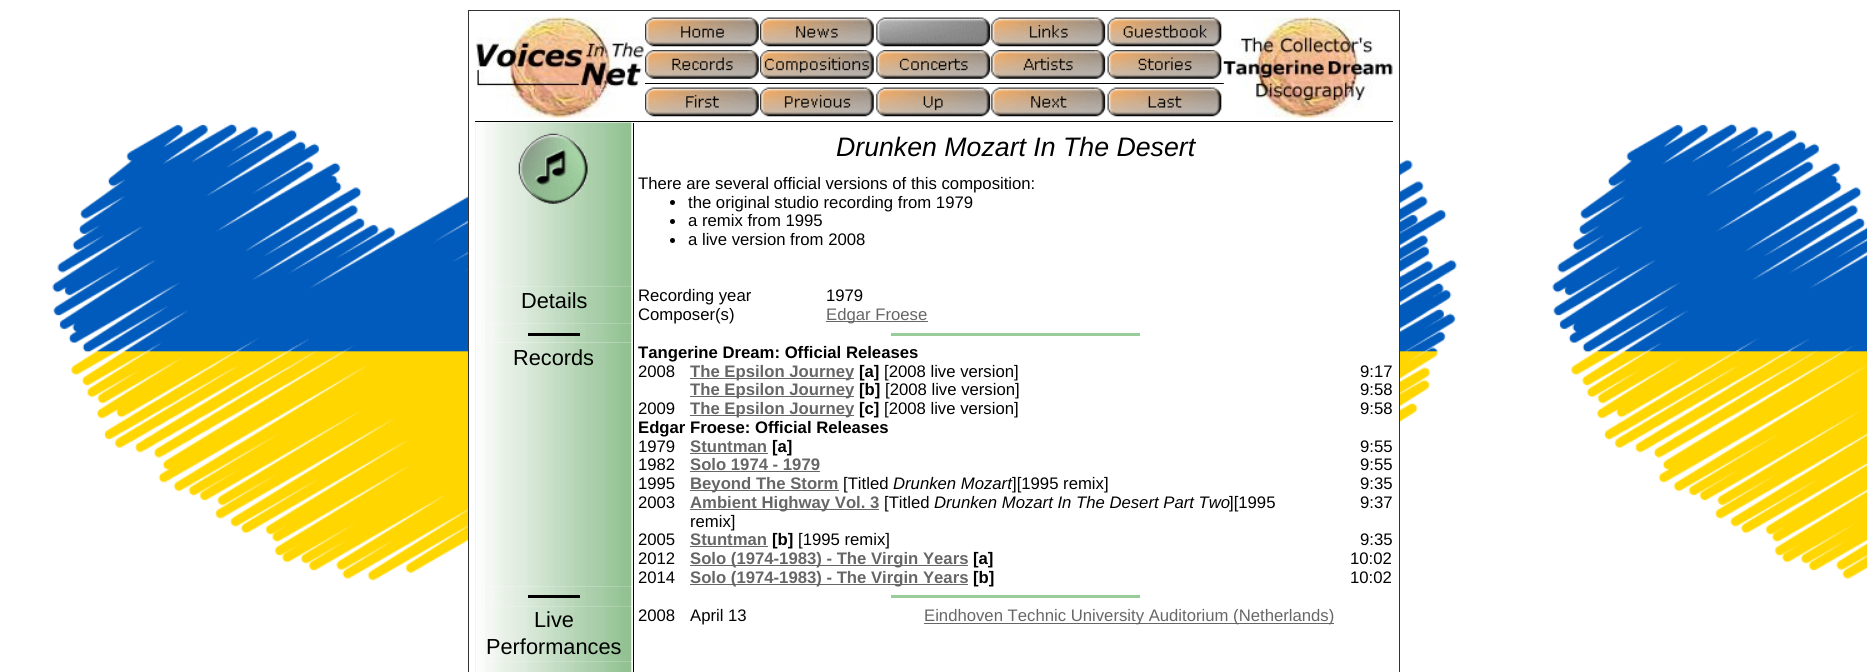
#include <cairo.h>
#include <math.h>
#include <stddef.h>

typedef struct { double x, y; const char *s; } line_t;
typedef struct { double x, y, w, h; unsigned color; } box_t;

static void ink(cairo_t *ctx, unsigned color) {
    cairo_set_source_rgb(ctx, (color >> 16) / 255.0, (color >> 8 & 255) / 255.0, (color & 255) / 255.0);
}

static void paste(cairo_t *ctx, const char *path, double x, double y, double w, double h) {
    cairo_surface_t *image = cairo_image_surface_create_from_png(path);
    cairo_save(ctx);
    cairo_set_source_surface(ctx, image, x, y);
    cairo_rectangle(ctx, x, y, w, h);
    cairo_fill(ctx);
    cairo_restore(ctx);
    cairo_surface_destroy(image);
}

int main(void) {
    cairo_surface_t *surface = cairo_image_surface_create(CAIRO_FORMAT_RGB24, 1867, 672);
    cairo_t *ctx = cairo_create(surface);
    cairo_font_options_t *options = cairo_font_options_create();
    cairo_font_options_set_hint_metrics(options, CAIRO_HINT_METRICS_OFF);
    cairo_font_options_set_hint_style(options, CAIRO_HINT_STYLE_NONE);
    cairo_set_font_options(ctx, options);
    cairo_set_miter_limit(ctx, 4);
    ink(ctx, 0xFFFFFF);
    cairo_paint(ctx);
    paste(ctx, "media/1.png", 52, 123, 1815, 458);
    {
        static const box_t items[] = {
            {469, 123, 930, 458, 0xFFFFFF},
            {468, 10, 932, 1, 0x333333},
            {1399, 10, 1, 662, 0x333333},
            {468, 10, 1, 662, 0x333333},
        };
        for (size_t i = 0; i < sizeof items / sizeof *items; i++) {
            ink(ctx, items[i].color);
            cairo_rectangle(ctx, items[i].x, items[i].y, items[i].w, items[i].h);
            cairo_fill(ctx);
        }
    }
    paste(ctx, "media/2.png", 476, 17, 169, 101);
    paste(ctx, "media/3.png", 645, 17, 114, 30);
    paste(ctx, "media/4.png", 760, 17, 114, 30);
    paste(ctx, "media/5.png", 876, 17, 115, 30);
    paste(ctx, "media/6.png", 991, 17, 115, 30);
    paste(ctx, "media/7.png", 1107, 17, 115, 30);
    paste(ctx, "media/8.png", 645, 50, 114, 29);
    paste(ctx, "media/9.png", 760, 50, 114, 29);
    paste(ctx, "media/10.png", 876, 50, 115, 29);
    paste(ctx, "media/11.png", 991, 50, 115, 29);
    paste(ctx, "media/12.png", 1107, 50, 115, 29);
    ink(ctx, 0x000000);
    cairo_rectangle(ctx, 645, 83, 579, 1);
    cairo_fill(ctx);
    paste(ctx, "media/13.png", 645, 87, 114, 30);
    paste(ctx, "media/14.png", 760, 87, 114, 30);
    paste(ctx, "media/15.png", 876, 87, 115, 30);
    paste(ctx, "media/16.png", 991, 87, 115, 30);
    paste(ctx, "media/17.png", 1107, 87, 115, 30);
    paste(ctx, "media/18.png", 1223, 17, 170, 101);
    cairo_rectangle(ctx, 475, 121, 918, 1);
    cairo_fill(ctx);
    paste(ctx, "media/20.png", 475, 122, 157, 165);
    paste(ctx, "media/22.png", 475, 286, 157, 38);
    paste(ctx, "media/23.png", 475, 323, 157, 20);
    paste(ctx, "media/24.png", 475, 342, 157, 245);
    paste(ctx, "media/25.png", 475, 586, 157, 21);
    paste(ctx, "media/26.png", 475, 606, 157, 56);
    paste(ctx, "media/19.png", 475, 661, 157, 11);
    cairo_rectangle(ctx, 633, 123, 1, 549);
    cairo_fill(ctx);
    paste(ctx, "media/21.png", 518, 133, 70, 71);
    cairo_select_font_face(ctx, "Liberation Sans", CAIRO_FONT_SLANT_ITALIC, CAIRO_FONT_WEIGHT_NORMAL);
    cairo_set_font_size(ctx, 26.7);
    cairo_move_to(ctx, 836, 156);
    cairo_show_text(ctx, "Drunken Mozart In The Desert");
    cairo_select_font_face(ctx, "Liberation Sans", CAIRO_FONT_SLANT_NORMAL, CAIRO_FONT_WEIGHT_NORMAL);
    cairo_set_font_size(ctx, 16.7);
    cairo_move_to(ctx, 638, 189);
    cairo_show_text(ctx, "There are several official versions of this composition:");
    cairo_new_path(ctx);
    cairo_arc(ctx, 672.5, 202.5, 2.5, 0, 2 * M_PI);
    cairo_fill(ctx);
    cairo_move_to(ctx, 688, 208);
    cairo_show_text(ctx, "the original studio recording from 1979");
    cairo_new_path(ctx);
    cairo_arc(ctx, 672.5, 221.5, 2.5, 0, 2 * M_PI);
    cairo_fill(ctx);
    cairo_move_to(ctx, 688, 226);
    cairo_show_text(ctx, "a remix from 1995");
    cairo_new_path(ctx);
    cairo_arc(ctx, 672.5, 240.5, 2.5, 0, 2 * M_PI);
    cairo_fill(ctx);
    cairo_move_to(ctx, 688, 245);
    cairo_show_text(ctx, "a live version from 2008");
    cairo_set_font_size(ctx, 21.75);
    cairo_move_to(ctx, 521, 308);
    cairo_show_text(ctx, "Details");
    cairo_set_font_size(ctx, 16.7);
    {
        static const line_t items[] = {
            {638, 301, "Recording year"},
            {826, 301, "1979"},
            {638, 320, "Composer(s)"},
        };
        for (size_t i = 0; i < sizeof items / sizeof *items; i++) {
            cairo_move_to(ctx, items[i].x, items[i].y);
            cairo_show_text(ctx, items[i].s);
        }
    }
    ink(ctx, 0x666666);
    cairo_rectangle(ctx, 826, 321, 102, 1);
    cairo_fill(ctx);
    cairo_move_to(ctx, 826, 320);
    cairo_show_text(ctx, "Edgar Froese");
    ink(ctx, 0x000000);
    cairo_rectangle(ctx, 528, 333, 52, 3);
    cairo_fill(ctx);
    ink(ctx, 0x99CC99);
    cairo_rectangle(ctx, 891, 333, 249, 3);
    cairo_fill(ctx);
    cairo_set_font_size(ctx, 21.75);
    ink(ctx, 0x000000);
    cairo_move_to(ctx, 513, 365);
    cairo_show_text(ctx, "Records");
    cairo_select_font_face(ctx, "Liberation Sans", CAIRO_FONT_SLANT_NORMAL, CAIRO_FONT_WEIGHT_BOLD);
    cairo_set_font_size(ctx, 16.7);
    cairo_move_to(ctx, 638, 358);
    cairo_show_text(ctx, "Tangerine Dream: Official Releases");
    cairo_select_font_face(ctx, "Liberation Sans", CAIRO_FONT_SLANT_NORMAL, CAIRO_FONT_WEIGHT_NORMAL);
    cairo_move_to(ctx, 638, 377);
    cairo_show_text(ctx, "2008");
    ink(ctx, 0x666666);
    cairo_rectangle(ctx, 690, 378, 164, 1);
    cairo_fill(ctx);
    cairo_select_font_face(ctx, "Liberation Sans", CAIRO_FONT_SLANT_NORMAL, CAIRO_FONT_WEIGHT_BOLD);
    cairo_move_to(ctx, 690, 377);
    cairo_show_text(ctx, "The Epsilon Journey");
    ink(ctx, 0x000000);
    cairo_move_to(ctx, 859, 377);
    cairo_show_text(ctx, "[a]");
    cairo_select_font_face(ctx, "Liberation Sans", CAIRO_FONT_SLANT_NORMAL, CAIRO_FONT_WEIGHT_NORMAL);
    cairo_move_to(ctx, 884, 377);
    cairo_show_text(ctx, "[2008 live version]");
    cairo_move_to(ctx, 1360, 377);
    cairo_show_text(ctx, "9:17");
    ink(ctx, 0x666666);
    cairo_rectangle(ctx, 690, 396, 164, 1);
    cairo_fill(ctx);
    cairo_select_font_face(ctx, "Liberation Sans", CAIRO_FONT_SLANT_NORMAL, CAIRO_FONT_WEIGHT_BOLD);
    cairo_move_to(ctx, 690, 395);
    cairo_show_text(ctx, "The Epsilon Journey");
    ink(ctx, 0x000000);
    cairo_move_to(ctx, 859, 395);
    cairo_show_text(ctx, "[b]");
    cairo_select_font_face(ctx, "Liberation Sans", CAIRO_FONT_SLANT_NORMAL, CAIRO_FONT_WEIGHT_NORMAL);
    {
        static const line_t items[] = {
            {885, 395, "[2008 live version]"},
            {1360, 395, "9:58"},
            {638, 414, "2009"},
        };
        for (size_t i = 0; i < sizeof items / sizeof *items; i++) {
            cairo_move_to(ctx, items[i].x, items[i].y);
            cairo_show_text(ctx, items[i].s);
        }
    }
    ink(ctx, 0x666666);
    cairo_rectangle(ctx, 690, 415, 164, 1);
    cairo_fill(ctx);
    cairo_select_font_face(ctx, "Liberation Sans", CAIRO_FONT_SLANT_NORMAL, CAIRO_FONT_WEIGHT_BOLD);
    cairo_move_to(ctx, 690, 414);
    cairo_show_text(ctx, "The Epsilon Journey");
    ink(ctx, 0x000000);
    cairo_move_to(ctx, 859, 414);
    cairo_show_text(ctx, "[c]");
    cairo_select_font_face(ctx, "Liberation Sans", CAIRO_FONT_SLANT_NORMAL, CAIRO_FONT_WEIGHT_NORMAL);
    cairo_move_to(ctx, 884, 414);
    cairo_show_text(ctx, "[2008 live version]");
    cairo_move_to(ctx, 1360, 414);
    cairo_show_text(ctx, "9:58");
    cairo_select_font_face(ctx, "Liberation Sans", CAIRO_FONT_SLANT_NORMAL, CAIRO_FONT_WEIGHT_BOLD);
    cairo_move_to(ctx, 638, 433);
    cairo_show_text(ctx, "Edgar Froese: Official Releases");
    cairo_select_font_face(ctx, "Liberation Sans", CAIRO_FONT_SLANT_NORMAL, CAIRO_FONT_WEIGHT_NORMAL);
    cairo_move_to(ctx, 638, 452);
    cairo_show_text(ctx, "1979");
    cairo_select_font_face(ctx, "Liberation Sans", CAIRO_FONT_SLANT_NORMAL, CAIRO_FONT_WEIGHT_BOLD);
    ink(ctx, 0x666666);
    cairo_move_to(ctx, 690, 452);
    cairo_show_text(ctx, "Stuntman");
    cairo_rectangle(ctx, 690, 453, 78, 1);
    cairo_fill(ctx);
    ink(ctx, 0x000000);
    cairo_move_to(ctx, 772, 452);
    cairo_show_text(ctx, "[a]");
    cairo_select_font_face(ctx, "Liberation Sans", CAIRO_FONT_SLANT_NORMAL, CAIRO_FONT_WEIGHT_NORMAL);
    cairo_move_to(ctx, 1360, 452);
    cairo_show_text(ctx, "9:55");
    cairo_move_to(ctx, 638, 470);
    cairo_show_text(ctx, "1982");
    cairo_select_font_face(ctx, "Liberation Sans", CAIRO_FONT_SLANT_NORMAL, CAIRO_FONT_WEIGHT_BOLD);
    ink(ctx, 0x666666);
    cairo_move_to(ctx, 690, 470);
    cairo_show_text(ctx, "Solo 1974 - 1979");
    cairo_rectangle(ctx, 690, 471, 130, 1);
    cairo_fill(ctx);
    cairo_select_font_face(ctx, "Liberation Sans", CAIRO_FONT_SLANT_NORMAL, CAIRO_FONT_WEIGHT_NORMAL);
    ink(ctx, 0x000000);
    cairo_move_to(ctx, 1360, 470);
    cairo_show_text(ctx, "9:55");
    cairo_move_to(ctx, 638, 489);
    cairo_show_text(ctx, "1995");
    ink(ctx, 0x666666);
    cairo_rectangle(ctx, 690, 490, 149, 1);
    cairo_fill(ctx);
    cairo_select_font_face(ctx, "Liberation Sans", CAIRO_FONT_SLANT_NORMAL, CAIRO_FONT_WEIGHT_BOLD);
    cairo_move_to(ctx, 690, 489);
    cairo_show_text(ctx, "Beyond The Storm");
    cairo_select_font_face(ctx, "Liberation Sans", CAIRO_FONT_SLANT_NORMAL, CAIRO_FONT_WEIGHT_NORMAL);
    ink(ctx, 0x000000);
    cairo_move_to(ctx, 843, 489);
    cairo_show_text(ctx, "[Titled");
    cairo_select_font_face(ctx, "Liberation Sans", CAIRO_FONT_SLANT_ITALIC, CAIRO_FONT_WEIGHT_NORMAL);
    cairo_move_to(ctx, 893, 489);
    cairo_show_text(ctx, "Drunken Mozart");
    cairo_select_font_face(ctx, "Liberation Sans", CAIRO_FONT_SLANT_NORMAL, CAIRO_FONT_WEIGHT_NORMAL);
    {
        static const line_t items[] = {
            {1012, 489, "][1995 remix]"},
            {1360, 489, "9:35"},
            {638, 508, "2003"},
        };
        for (size_t i = 0; i < sizeof items / sizeof *items; i++) {
            cairo_move_to(ctx, items[i].x, items[i].y);
            cairo_show_text(ctx, items[i].s);
        }
    }
    ink(ctx, 0x666666);
    cairo_rectangle(ctx, 690, 509, 189, 1);
    cairo_fill(ctx);
    cairo_select_font_face(ctx, "Liberation Sans", CAIRO_FONT_SLANT_NORMAL, CAIRO_FONT_WEIGHT_BOLD);
    cairo_move_to(ctx, 690, 508);
    cairo_show_text(ctx, "Ambient Highway Vol. 3");
    cairo_select_font_face(ctx, "Liberation Sans", CAIRO_FONT_SLANT_NORMAL, CAIRO_FONT_WEIGHT_NORMAL);
    ink(ctx, 0x000000);
    cairo_move_to(ctx, 884, 508);
    cairo_show_text(ctx, "[Titled");
    cairo_select_font_face(ctx, "Liberation Sans", CAIRO_FONT_SLANT_ITALIC, CAIRO_FONT_WEIGHT_NORMAL);
    cairo_move_to(ctx, 934, 508);
    cairo_show_text(ctx, "Drunken Mozart In The Desert Part Two");
    cairo_select_font_face(ctx, "Liberation Sans", CAIRO_FONT_SLANT_NORMAL, CAIRO_FONT_WEIGHT_NORMAL);
    {
        static const line_t items[] = {
            {1229, 508, "][1995"},
            {690, 527, "remix]"},
            {1360, 508, "9:37"},
            {638, 545, "2005"},
        };
        for (size_t i = 0; i < sizeof items / sizeof *items; i++) {
            cairo_move_to(ctx, items[i].x, items[i].y);
            cairo_show_text(ctx, items[i].s);
        }
    }
    cairo_select_font_face(ctx, "Liberation Sans", CAIRO_FONT_SLANT_NORMAL, CAIRO_FONT_WEIGHT_BOLD);
    ink(ctx, 0x666666);
    cairo_move_to(ctx, 690, 545);
    cairo_show_text(ctx, "Stuntman");
    cairo_rectangle(ctx, 690, 546, 78, 1);
    cairo_fill(ctx);
    ink(ctx, 0x000000);
    cairo_move_to(ctx, 772, 545);
    cairo_show_text(ctx, "[b]");
    cairo_select_font_face(ctx, "Liberation Sans", CAIRO_FONT_SLANT_NORMAL, CAIRO_FONT_WEIGHT_NORMAL);
    {
        static const line_t items[] = {
            {798, 545, "[1995 remix]"},
            {1360, 545, "9:35"},
            {638, 564, "2012"},
        };
        for (size_t i = 0; i < sizeof items / sizeof *items; i++) {
            cairo_move_to(ctx, items[i].x, items[i].y);
            cairo_show_text(ctx, items[i].s);
        }
    }
    ink(ctx, 0x666666);
    cairo_rectangle(ctx, 690, 565, 278, 1);
    cairo_fill(ctx);
    cairo_select_font_face(ctx, "Liberation Sans", CAIRO_FONT_SLANT_NORMAL, CAIRO_FONT_WEIGHT_BOLD);
    cairo_move_to(ctx, 690, 564);
    cairo_show_text(ctx, "Solo (1974-1983) - The Virgin Years");
    ink(ctx, 0x000000);
    cairo_move_to(ctx, 973, 564);
    cairo_show_text(ctx, "[a]");
    cairo_select_font_face(ctx, "Liberation Sans", CAIRO_FONT_SLANT_NORMAL, CAIRO_FONT_WEIGHT_NORMAL);
    cairo_move_to(ctx, 1350, 564);
    cairo_show_text(ctx, "10:02");
    cairo_move_to(ctx, 638, 583);
    cairo_show_text(ctx, "2014");
    ink(ctx, 0x666666);
    cairo_rectangle(ctx, 690, 584, 278, 1);
    cairo_fill(ctx);
    cairo_select_font_face(ctx, "Liberation Sans", CAIRO_FONT_SLANT_NORMAL, CAIRO_FONT_WEIGHT_BOLD);
    cairo_move_to(ctx, 690, 583);
    cairo_show_text(ctx, "Solo (1974-1983) - The Virgin Years");
    ink(ctx, 0x000000);
    cairo_move_to(ctx, 973, 583);
    cairo_show_text(ctx, "[b]");
    cairo_select_font_face(ctx, "Liberation Sans", CAIRO_FONT_SLANT_NORMAL, CAIRO_FONT_WEIGHT_NORMAL);
    cairo_move_to(ctx, 1350, 583);
    cairo_show_text(ctx, "10:02");
    cairo_rectangle(ctx, 528, 595, 52, 3);
    cairo_fill(ctx);
    ink(ctx, 0x99CC99);
    cairo_rectangle(ctx, 891, 595, 249, 3);
    cairo_fill(ctx);
    cairo_set_font_size(ctx, 21.75);
    ink(ctx, 0x000000);
    cairo_move_to(ctx, 534, 627);
    cairo_show_text(ctx, "Live");
    cairo_move_to(ctx, 486, 654);
    cairo_show_text(ctx, "Performances");
    cairo_set_font_size(ctx, 16.7);
    cairo_move_to(ctx, 638, 621);
    cairo_show_text(ctx, "2008");
    cairo_move_to(ctx, 690, 621);
    cairo_show_text(ctx, "April 13");
    ink(ctx, 0x666666);
    cairo_rectangle(ctx, 924, 623, 410, 1);
    cairo_fill(ctx);
    cairo_move_to(ctx, 924, 621);
    cairo_show_text(ctx, "Eindhoven Technic University Auditorium (Netherlands)");
    cairo_surface_write_to_png(surface, "image.png");
    cairo_font_options_destroy(options);
    cairo_destroy(ctx);
    cairo_surface_destroy(surface);
    return 0;
}
